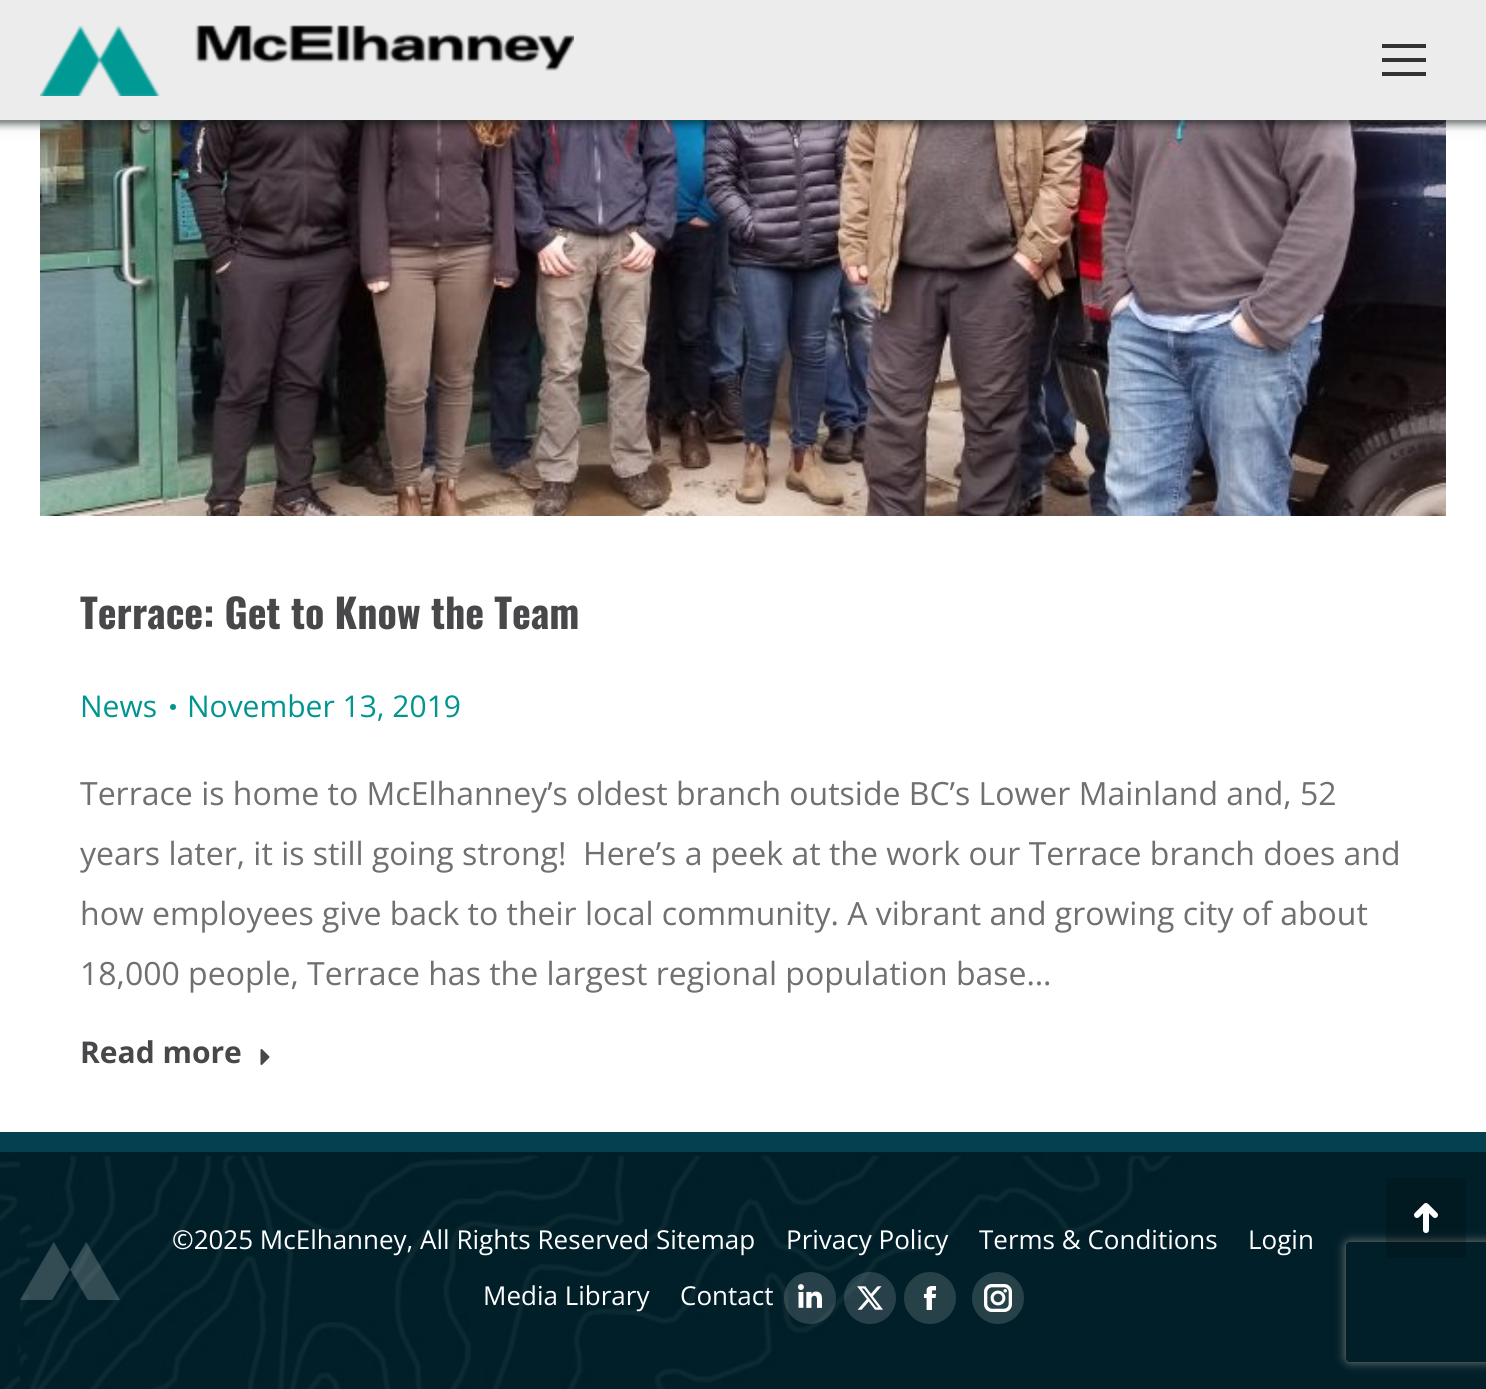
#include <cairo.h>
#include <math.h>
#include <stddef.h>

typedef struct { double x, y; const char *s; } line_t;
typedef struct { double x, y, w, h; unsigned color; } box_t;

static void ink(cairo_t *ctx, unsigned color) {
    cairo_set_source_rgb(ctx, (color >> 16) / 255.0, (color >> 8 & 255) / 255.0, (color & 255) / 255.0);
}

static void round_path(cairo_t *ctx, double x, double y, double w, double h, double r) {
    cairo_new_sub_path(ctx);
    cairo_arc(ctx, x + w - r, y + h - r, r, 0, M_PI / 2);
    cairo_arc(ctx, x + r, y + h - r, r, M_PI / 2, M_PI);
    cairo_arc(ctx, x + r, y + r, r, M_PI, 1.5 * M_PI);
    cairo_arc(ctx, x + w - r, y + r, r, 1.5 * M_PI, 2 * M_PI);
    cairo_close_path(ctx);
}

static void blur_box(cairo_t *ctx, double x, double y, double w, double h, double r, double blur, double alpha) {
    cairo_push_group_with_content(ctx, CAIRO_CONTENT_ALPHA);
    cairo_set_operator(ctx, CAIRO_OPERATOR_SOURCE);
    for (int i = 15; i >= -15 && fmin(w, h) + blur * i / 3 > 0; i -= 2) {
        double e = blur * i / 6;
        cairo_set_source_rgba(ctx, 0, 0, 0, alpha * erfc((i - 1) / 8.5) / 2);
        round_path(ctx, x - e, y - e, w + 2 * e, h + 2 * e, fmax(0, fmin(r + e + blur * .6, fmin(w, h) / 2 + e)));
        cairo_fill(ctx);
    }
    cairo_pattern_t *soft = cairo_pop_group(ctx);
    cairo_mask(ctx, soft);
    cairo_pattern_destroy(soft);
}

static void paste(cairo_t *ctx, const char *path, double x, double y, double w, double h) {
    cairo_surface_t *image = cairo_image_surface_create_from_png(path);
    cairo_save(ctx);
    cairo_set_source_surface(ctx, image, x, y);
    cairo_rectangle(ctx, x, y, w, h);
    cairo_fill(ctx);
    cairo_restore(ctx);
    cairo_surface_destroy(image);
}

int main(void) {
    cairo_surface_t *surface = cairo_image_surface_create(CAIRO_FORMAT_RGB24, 1486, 1389);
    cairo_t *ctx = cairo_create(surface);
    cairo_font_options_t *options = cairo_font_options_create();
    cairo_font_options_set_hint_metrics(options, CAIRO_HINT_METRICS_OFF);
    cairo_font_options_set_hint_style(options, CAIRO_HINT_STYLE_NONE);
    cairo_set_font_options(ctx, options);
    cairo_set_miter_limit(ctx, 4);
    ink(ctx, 0xFFFFFF);
    cairo_paint(ctx);
    paste(ctx, "media/3.png", 40, 120, 1406, 396);
    ink(ctx, 0x000000);
    blur_box(ctx, -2, -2, 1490, 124, 0, 15, 0.07);
    ink(ctx, 0xECECEC);
    cairo_rectangle(ctx, 0, 0, 1486, 120);
    cairo_fill(ctx);
    paste(ctx, "media/1.png", 40, 25, 534, 71);
    {
        static const box_t items[] = {
            {1382, 44, 44, 4, 0x333333},
            {1382, 58, 44, 4, 0x333333},
            {1382, 72, 44, 4, 0x333333},
        };
        for (size_t i = 0; i < sizeof items / sizeof *items; i++) {
            ink(ctx, items[i].color);
            cairo_rectangle(ctx, items[i].x, items[i].y, items[i].w, items[i].h);
            cairo_fill(ctx);
        }
    }
    paste(ctx, "media/2.png", 0, 120, 1486, 11);
    cairo_select_font_face(ctx, "Oswald", CAIRO_FONT_SLANT_NORMAL, CAIRO_FONT_WEIGHT_BOLD);
    cairo_set_font_size(ctx, 40);
    ink(ctx, 0x48484A);
    cairo_move_to(ctx, 80, 629);
    cairo_show_text(ctx, "Terrace: Get to Know the Team");
    cairo_select_font_face(ctx, "Open Sans", CAIRO_FONT_SLANT_NORMAL, CAIRO_FONT_WEIGHT_NORMAL);
    cairo_set_font_size(ctx, 30);
    ink(ctx, 0x00958F);
    cairo_move_to(ctx, 80, 717);
    cairo_show_text(ctx, "News");
    cairo_new_path(ctx);
    cairo_arc(ctx, 173, 707, 3, 0, 2 * M_PI);
    cairo_fill(ctx);
    cairo_move_to(ctx, 187, 717);
    cairo_show_text(ctx, "November 13, 2019");
    cairo_set_font_size(ctx, 32);
    ink(ctx, 0x707070);
    {
        static const line_t items[] = {
            {80, 805, "Terrace is home to McElhanney’s oldest branch outside BC’s Lower Mainland and, 52"},
            {80, 865, "years later, it is still going strong!  Here’s a peek at the work our Terrace branch does and"},
            {80, 925, "how employees give back to their local community. A vibrant and growing city of about"},
            {80, 985, "18,000 people, Terrace has the largest regional population base…"},
        };
        for (size_t i = 0; i < sizeof items / sizeof *items; i++) {
            cairo_move_to(ctx, items[i].x, items[i].y);
            cairo_show_text(ctx, items[i].s);
        }
    }
    cairo_select_font_face(ctx, "Open Sans", CAIRO_FONT_SLANT_NORMAL, CAIRO_FONT_WEIGHT_BOLD);
    cairo_set_font_size(ctx, 30);
    ink(ctx, 0x48484A);
    cairo_move_to(ctx, 80, 1063);
    cairo_show_text(ctx, "Read more");
    paste(ctx, "media/4.png", 260, 1049, 10, 16);
    paste(ctx, "media/6.png", 0, 1152, 1486, 237);
    cairo_save(ctx);
    cairo_set_fill_rule(ctx, CAIRO_FILL_RULE_EVEN_ODD);
    cairo_new_path(ctx);
    cairo_move_to(ctx, 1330, 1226);
    cairo_line_to(ctx, 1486, 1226);
    cairo_line_to(ctx, 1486, 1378);
    cairo_line_to(ctx, 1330, 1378);
    cairo_close_path(ctx);
    cairo_move_to(ctx, 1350, 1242);
    cairo_line_to(ctx, 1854, 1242);
    cairo_curve_to(ctx, 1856, 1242, 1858, 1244, 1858, 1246);
    cairo_line_to(ctx, 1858, 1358);
    cairo_curve_to(ctx, 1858, 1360, 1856, 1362, 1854, 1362);
    cairo_line_to(ctx, 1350, 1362);
    cairo_curve_to(ctx, 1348, 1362, 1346, 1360, 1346, 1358);
    cairo_line_to(ctx, 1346, 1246);
    cairo_curve_to(ctx, 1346, 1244, 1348, 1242, 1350, 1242);
    cairo_close_path(ctx);
    cairo_clip(ctx);
    ink(ctx, 0x808080);
    blur_box(ctx, 1346, 1242, 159, 120, 4, 5, 1);
    cairo_restore(ctx);
    cairo_set_source_rgba(ctx, 0, 0, 0, 0.2);
    cairo_rectangle(ctx, 1386, 1178, 80, 80);
    cairo_fill(ctx);
    paste(ctx, "media/5.png", 1414, 1203, 24, 30);
    ink(ctx, 0x054050);
    cairo_rectangle(ctx, 0, 1132, 1486, 20);
    cairo_fill(ctx);
    cairo_select_font_face(ctx, "Open Sans", CAIRO_FONT_SLANT_NORMAL, CAIRO_FONT_WEIGHT_NORMAL);
    cairo_set_font_size(ctx, 26);
    ink(ctx, 0xFFFFFF);
    {
        static const line_t items[] = {
            {172, 1249, "©2025 McElhanney, All Rights Reserved Sitemap"},
            {786, 1249, "Privacy Policy"},
            {979, 1249, "Terms & Conditions"},
            {1248, 1249, "Login"},
            {483, 1305, "Media Library"},
            {680, 1305, "Contact"},
        };
        for (size_t i = 0; i < sizeof items / sizeof *items; i++) {
            cairo_move_to(ctx, items[i].x, items[i].y);
            cairo_show_text(ctx, items[i].s);
        }
    }
    cairo_set_source_rgba(ctx, 1, 1, 1, 0.15);
    cairo_new_path(ctx);
    cairo_arc(ctx, 810, 1298, 26, 0, 2 * M_PI);
    cairo_fill(ctx);
    paste(ctx, "media/7.png", 798, 1284, 24, 24);
    cairo_arc(ctx, 870, 1298, 26, 0, 2 * M_PI);
    cairo_fill(ctx);
    paste(ctx, "media/8.png", 857, 1286, 26, 24);
    ink(ctx, 0x274149);
    cairo_arc(ctx, 930, 1298, 26, 0, 2 * M_PI);
    cairo_fill(ctx);
    paste(ctx, "media/9.png", 923, 1286, 14, 24);
    cairo_arc(ctx, 998, 1298, 26, 0, 2 * M_PI);
    cairo_fill(ctx);
    paste(ctx, "media/10.png", 984, 1284, 28, 28);
    cairo_surface_write_to_png(surface, "image.png");
    cairo_font_options_destroy(options);
    cairo_destroy(ctx);
    cairo_surface_destroy(surface);
    return 0;
}
